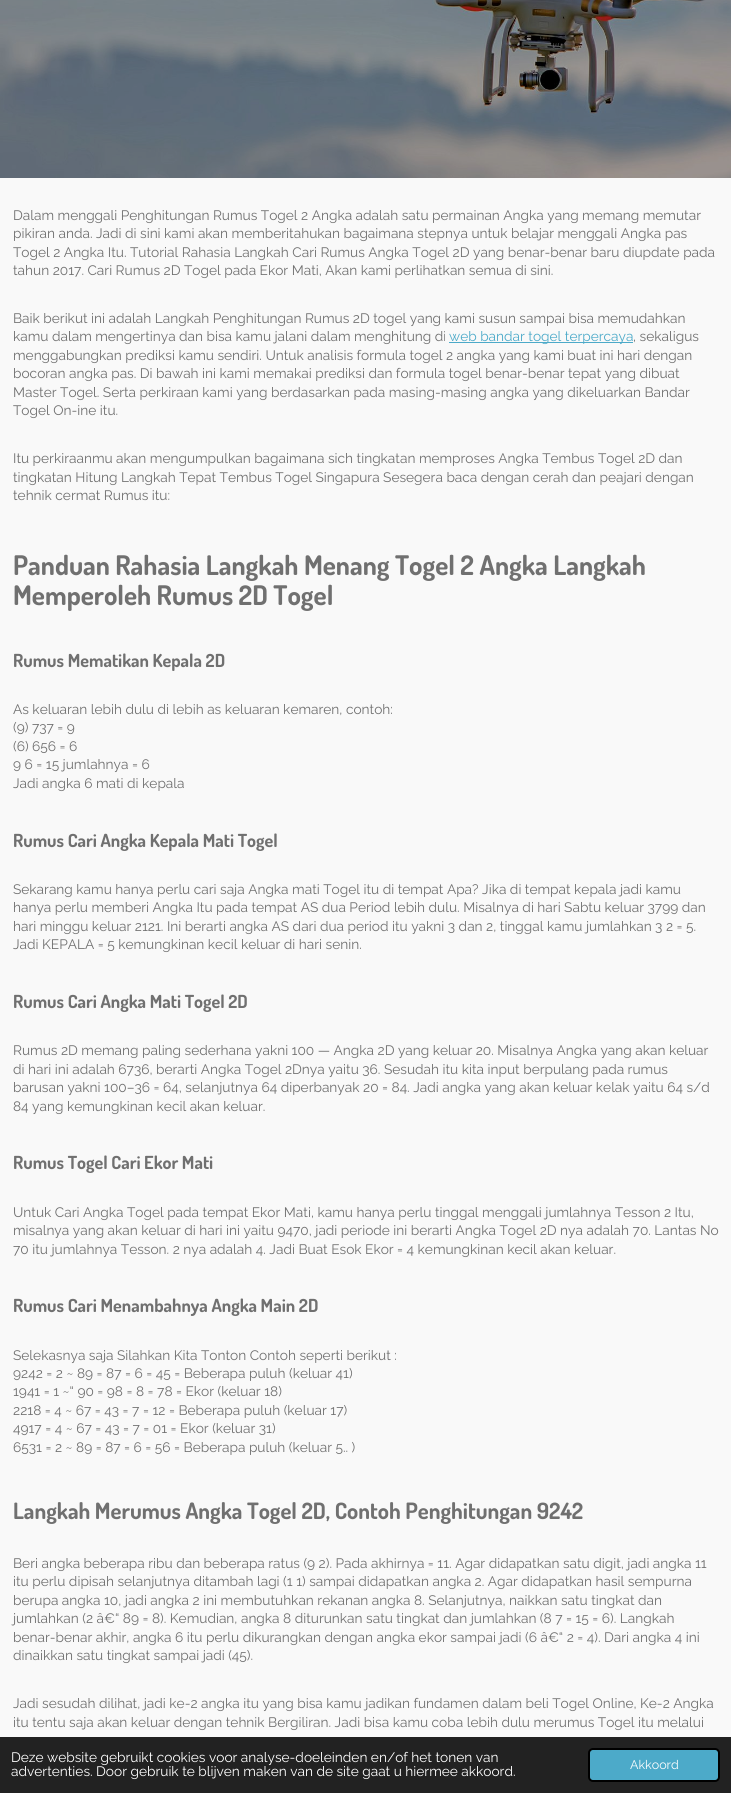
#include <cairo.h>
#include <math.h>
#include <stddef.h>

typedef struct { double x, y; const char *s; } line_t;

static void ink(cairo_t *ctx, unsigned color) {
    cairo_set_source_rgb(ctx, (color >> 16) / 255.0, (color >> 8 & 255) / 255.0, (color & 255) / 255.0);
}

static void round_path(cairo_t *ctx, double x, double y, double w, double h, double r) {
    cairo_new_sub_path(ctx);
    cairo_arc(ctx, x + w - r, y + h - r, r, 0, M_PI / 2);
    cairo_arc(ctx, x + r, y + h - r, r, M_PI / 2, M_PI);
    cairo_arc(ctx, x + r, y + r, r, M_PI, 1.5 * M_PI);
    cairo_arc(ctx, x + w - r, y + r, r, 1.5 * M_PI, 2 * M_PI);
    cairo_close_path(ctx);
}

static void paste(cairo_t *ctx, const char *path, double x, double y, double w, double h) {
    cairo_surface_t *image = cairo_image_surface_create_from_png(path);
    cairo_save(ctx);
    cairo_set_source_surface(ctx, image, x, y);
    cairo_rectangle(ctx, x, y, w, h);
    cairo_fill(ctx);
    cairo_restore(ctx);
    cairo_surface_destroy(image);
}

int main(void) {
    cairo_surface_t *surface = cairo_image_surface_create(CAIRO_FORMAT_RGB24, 731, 1793);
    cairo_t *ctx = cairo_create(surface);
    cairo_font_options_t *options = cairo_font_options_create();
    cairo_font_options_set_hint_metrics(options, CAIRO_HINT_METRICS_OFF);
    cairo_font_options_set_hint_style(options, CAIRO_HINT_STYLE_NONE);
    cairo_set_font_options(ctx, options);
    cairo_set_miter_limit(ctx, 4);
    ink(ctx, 0xF9F9F9);
    cairo_paint(ctx);
    paste(ctx, "media/1.png", 0, 0, 731, 178);
    cairo_select_font_face(ctx, "Raleway", CAIRO_FONT_SLANT_NORMAL, CAIRO_FONT_WEIGHT_NORMAL);
    cairo_set_font_size(ctx, 13.7);
    ink(ctx, 0x707070);
    {
        static const line_t items[] = {
            {13, 220, "Dalam menggali Penghitungan Rumus Togel 2 Angka adalah satu permainan Angka yang memang memutar"},
            {13, 238, "pikiran anda. Jadi di sini kami akan memberitahukan bagaimana stepnya untuk belajar menggali Angka pas"},
            {13, 257, "Togel 2 Angka Itu. Tutorial Rahasia Langkah Cari Rumus Angka Togel 2D yang benar-benar baru diupdate pada"},
            {13, 275, "tahun 2017. Cari Rumus 2D Togel pada Ekor Mati, Akan kami perlihatkan semua di sini."},
            {13, 323, "Baik berikut ini adalah Langkah Penghitungan Rumus 2D togel yang kami susun sampai bisa memudahkan"},
            {13, 341, "kamu dalam mengertinya dan bisa kamu jalani dalam menghitung di"},
        };
        for (size_t i = 0; i < sizeof items / sizeof *items; i++) {
            cairo_move_to(ctx, items[i].x, items[i].y);
            cairo_show_text(ctx, items[i].s);
        }
    }
    ink(ctx, 0x4CAAC9);
    cairo_rectangle(ctx, 449, 342, 184, 1);
    cairo_fill(ctx);
    cairo_move_to(ctx, 449, 341);
    cairo_show_text(ctx, "web bandar togel terpercaya");
    ink(ctx, 0x707070);
    {
        static const line_t items[] = {
            {633, 341, ", sekaligus"},
            {13, 360, "menggabungkan prediksi kamu sendiri. Untuk analisis formula togel 2 angka yang kami buat ini hari dengan"},
            {13, 378, "bocoran angka pas. Di bawah ini kami memakai prediksi dan formula togel benar-benar tepat yang dibuat"},
            {13, 397, "Master Togel. Serta perkiraan kami yang berdasarkan pada masing-masing angka yang dikeluarkan Bandar"},
            {13, 415, "Togel On-ine itu."},
            {13, 463, "Itu perkiraanmu akan mengumpulkan bagaimana sich tingkatan memproses Angka Tembus Togel 2D dan"},
            {13, 482, "tingkatan Hitung Langkah Tepat Tembus Togel Singapura Sesegera baca dengan cerah dan peajari dengan"},
            {13, 500, "tehnik cermat Rumus itu:"},
        };
        for (size_t i = 0; i < sizeof items / sizeof *items; i++) {
            cairo_move_to(ctx, items[i].x, items[i].y);
            cairo_show_text(ctx, items[i].s);
        }
    }
    cairo_select_font_face(ctx, "Dosis", CAIRO_FONT_SLANT_NORMAL, CAIRO_FONT_WEIGHT_BOLD);
    cairo_set_font_size(ctx, 27);
    cairo_move_to(ctx, 13, 575);
    cairo_show_text(ctx, "Panduan Rahasia Langkah Menang Togel 2 Angka Langkah");
    cairo_move_to(ctx, 13, 605);
    cairo_show_text(ctx, "Memperoleh Rumus 2D Togel");
    cairo_set_font_size(ctx, 18);
    cairo_move_to(ctx, 13, 667);
    cairo_show_text(ctx, "Rumus Mematikan Kepala 2D");
    cairo_select_font_face(ctx, "Raleway", CAIRO_FONT_SLANT_NORMAL, CAIRO_FONT_WEIGHT_NORMAL);
    cairo_set_font_size(ctx, 13.7);
    {
        static const line_t items[] = {
            {13, 714, "As keluaran lebih dulu di lebih as keluaran kemaren, contoh:"},
            {13, 732, "(9) 737 = 9"},
            {13, 751, "(6) 656 = 6"},
            {13, 769, "9 6 = 15 jumlahnya = 6"},
            {13, 788, "Jadi angka 6 mati di kepala"},
        };
        for (size_t i = 0; i < sizeof items / sizeof *items; i++) {
            cairo_move_to(ctx, items[i].x, items[i].y);
            cairo_show_text(ctx, items[i].s);
        }
    }
    cairo_select_font_face(ctx, "Dosis", CAIRO_FONT_SLANT_NORMAL, CAIRO_FONT_WEIGHT_BOLD);
    cairo_set_font_size(ctx, 18);
    cairo_move_to(ctx, 13, 847);
    cairo_show_text(ctx, "Rumus Cari Angka Kepala Mati Togel");
    cairo_select_font_face(ctx, "Raleway", CAIRO_FONT_SLANT_NORMAL, CAIRO_FONT_WEIGHT_NORMAL);
    cairo_set_font_size(ctx, 13.7);
    {
        static const line_t items[] = {
            {13, 894, "Sekarang kamu hanya perlu cari saja Angka mati Togel itu di tempat Apa? Jika di tempat kepala jadi kamu"},
            {13, 912, "hanya perlu memberi Angka Itu pada tempat AS dua Period lebih dulu. Misalnya di hari Sabtu keluar 3799 dan"},
            {13, 931, "hari minggu keluar 2121. Ini berarti angka AS dari dua period itu yakni 3 dan 2, tinggal kamu jumlahkan 3 2 = 5."},
            {13, 949, "Jadi KEPALA = 5 kemungkinan kecil keluar di hari senin."},
        };
        for (size_t i = 0; i < sizeof items / sizeof *items; i++) {
            cairo_move_to(ctx, items[i].x, items[i].y);
            cairo_show_text(ctx, items[i].s);
        }
    }
    cairo_select_font_face(ctx, "Dosis", CAIRO_FONT_SLANT_NORMAL, CAIRO_FONT_WEIGHT_BOLD);
    cairo_set_font_size(ctx, 18);
    cairo_move_to(ctx, 13, 1008);
    cairo_show_text(ctx, "Rumus Cari Angka Mati Togel 2D");
    cairo_select_font_face(ctx, "Raleway", CAIRO_FONT_SLANT_NORMAL, CAIRO_FONT_WEIGHT_NORMAL);
    cairo_set_font_size(ctx, 13.7);
    {
        static const line_t items[] = {
            {13, 1055, "Rumus 2D memang paling sederhana yakni 100 — Angka 2D yang keluar 20. Misalnya Angka yang akan keluar"},
            {13, 1074, "di hari ini adalah 6736, berarti Angka Togel 2Dnya yaitu 36. Sesudah itu kita input berpulang pada rumus"},
            {13, 1092, "barusan yakni 100–36 = 64, selanjutnya 64 diperbanyak 20 = 84. Jadi angka yang akan keluar kelak yaitu 64 s/d"},
            {13, 1111, "84 yang kemungkinan kecil akan keluar."},
        };
        for (size_t i = 0; i < sizeof items / sizeof *items; i++) {
            cairo_move_to(ctx, items[i].x, items[i].y);
            cairo_show_text(ctx, items[i].s);
        }
    }
    cairo_select_font_face(ctx, "Dosis", CAIRO_FONT_SLANT_NORMAL, CAIRO_FONT_WEIGHT_BOLD);
    cairo_set_font_size(ctx, 18);
    cairo_move_to(ctx, 13, 1169);
    cairo_show_text(ctx, "Rumus Togel Cari Ekor Mati");
    cairo_select_font_face(ctx, "Raleway", CAIRO_FONT_SLANT_NORMAL, CAIRO_FONT_WEIGHT_NORMAL);
    cairo_set_font_size(ctx, 13.7);
    {
        static const line_t items[] = {
            {13, 1217, "Untuk Cari Angka Togel pada tempat Ekor Mati, kamu hanya perlu tinggal menggali jumlahnya Tesson 2 Itu,"},
            {13, 1235, "misalnya yang akan keluar di hari ini yaitu 9470, jadi periode ini berarti Angka Togel 2D nya adalah 70. Lantas No"},
            {13, 1254, "70 itu jumlahnya Tesson. 2 nya adalah 4. Jadi Buat Esok Ekor = 4 kemungkinan kecil akan keluar."},
        };
        for (size_t i = 0; i < sizeof items / sizeof *items; i++) {
            cairo_move_to(ctx, items[i].x, items[i].y);
            cairo_show_text(ctx, items[i].s);
        }
    }
    cairo_select_font_face(ctx, "Dosis", CAIRO_FONT_SLANT_NORMAL, CAIRO_FONT_WEIGHT_BOLD);
    cairo_set_font_size(ctx, 18);
    cairo_move_to(ctx, 13, 1312);
    cairo_show_text(ctx, "Rumus Cari Menambahnya Angka Main 2D");
    cairo_select_font_face(ctx, "Raleway", CAIRO_FONT_SLANT_NORMAL, CAIRO_FONT_WEIGHT_NORMAL);
    cairo_set_font_size(ctx, 13.7);
    {
        static const line_t items[] = {
            {13, 1360, "Selekasnya saja Silahkan Kita Tonton Contoh seperti berikut :"},
            {13, 1378, "9242 = 2 ~ 89 = 87 = 6 = 45 = Beberapa puluh (keluar 41)"},
            {13, 1396, "1941 = 1 ~“ 90 = 98 = 8 = 78 = Ekor (keluar 18)"},
            {13, 1415, "2218 = 4 ~ 67 = 43 = 7 = 12 = Beberapa puluh (keluar 17)"},
            {13, 1433, "4917 = 4 ~ 67 = 43 = 7 = 01 = Ekor (keluar 31)"},
            {13, 1452, "6531 = 2 ~ 89 = 87 = 6 = 56 = Beberapa puluh (keluar 5.. )"},
        };
        for (size_t i = 0; i < sizeof items / sizeof *items; i++) {
            cairo_move_to(ctx, items[i].x, items[i].y);
            cairo_show_text(ctx, items[i].s);
        }
    }
    cairo_select_font_face(ctx, "Dosis", CAIRO_FONT_SLANT_NORMAL, CAIRO_FONT_WEIGHT_BOLD);
    cairo_set_font_size(ctx, 22.5);
    cairo_move_to(ctx, 13, 1519);
    cairo_show_text(ctx, "Langkah Merumus Angka Togel 2D, Contoh Penghitungan 9242");
    cairo_select_font_face(ctx, "Raleway", CAIRO_FONT_SLANT_NORMAL, CAIRO_FONT_WEIGHT_NORMAL);
    cairo_set_font_size(ctx, 13.7);
    {
        static const line_t items[] = {
            {13, 1568, "Beri angka beberapa ribu dan beberapa ratus (9 2). Pada akhirnya = 11. Agar didapatkan satu digit, jadi angka 11"},
            {13, 1586, "itu perlu dipisah selanjutnya ditambah lagi (1 1) sampai didapatkan angka 2. Agar didapatkan hasil sempurna"},
            {13, 1605, "berupa angka 10, jadi angka 2 ini membutuhkan rekanan angka 8. Selanjutnya, naikkan satu tingkat dan"},
            {13, 1623, "jumlahkan (2 â€“ 89 = 8). Kemudian, angka 8 diturunkan satu tingkat dan jumlahkan (8 7 = 15 = 6). Langkah"},
            {13, 1642, "benar-benar akhir, angka 6 itu perlu dikurangkan dengan angka ekor sampai jadi (6 â€“ 2 = 4). Dari angka 4 ini"},
            {13, 1660, "dinaikkan satu tingkat sampai jadi (45)."},
            {13, 1708, "Jadi sesudah dilihat, jadi ke-2 angka itu yang bisa kamu jadikan fundamen dalam beli Togel Online, Ke-2 Angka"},
            {13, 1727, "itu tentu saja akan keluar dengan tehnik Bergiliran. Jadi bisa kamu coba lebih dulu merumus Togel itu melalui"},
        };
        for (size_t i = 0; i < sizeof items / sizeof *items; i++) {
            cairo_move_to(ctx, items[i].x, items[i].y);
            cairo_show_text(ctx, items[i].s);
        }
    }
    ink(ctx, 0x222222);
    cairo_rectangle(ctx, 0, 1737, 731, 56);
    cairo_fill(ctx);
    ink(ctx, 0xFFFFFF);
    cairo_move_to(ctx, 11, 1762);
    cairo_show_text(ctx, "Deze website gebruikt cookies voor analyse-doeleinden en/of het tonen van");
    cairo_move_to(ctx, 11, 1776);
    cairo_show_text(ctx, "advertenties. Door gebruik te blijven maken van de site gaat u hiermee akkoord.");
    ink(ctx, 0x4CAAC9);
    round_path(ctx, 589, 1749, 130, 32, 4);
    cairo_fill_preserve(ctx);
    ink(ctx, 0x000000);
    cairo_stroke(ctx);
    cairo_set_font_size(ctx, 12.5);
    ink(ctx, 0xFFFFFF);
    cairo_move_to(ctx, 630, 1769);
    cairo_show_text(ctx, "Akkoord");
    cairo_surface_write_to_png(surface, "image.png");
    cairo_font_options_destroy(options);
    cairo_destroy(ctx);
    cairo_surface_destroy(surface);
    return 0;
}
